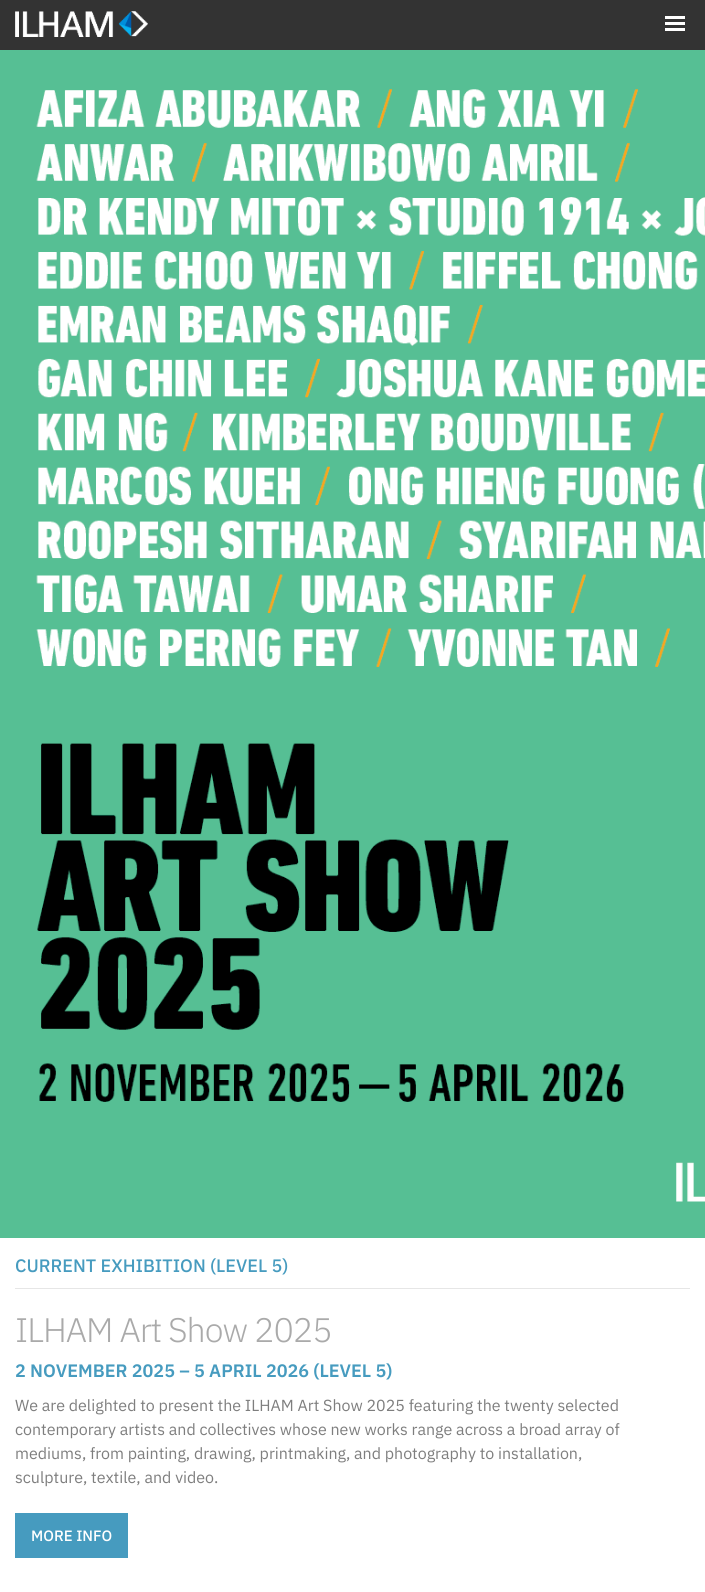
#include <cairo.h>
#include <math.h>
#include <stddef.h>

typedef struct { double x, y; const char *s; } line_t;
typedef struct { double x, y, w, h; unsigned color; } box_t;

static void ink(cairo_t *ctx, unsigned color) {
    cairo_set_source_rgb(ctx, (color >> 16) / 255.0, (color >> 8 & 255) / 255.0, (color & 255) / 255.0);
}

static void write_spaced(cairo_t *ctx, double x, double y, const char *s, double letter, double word) {
    cairo_move_to(ctx, x, y);
    while (*s) {
        char ch[5] = {0};
        int n = 0;
        do ch[n++] = *s++; while ((*s & 0xC0) == 0x80);
        cairo_show_text(ctx, ch);
        cairo_rel_move_to(ctx, letter + word * (*ch == ' '), 0);
    }
}

static void paste(cairo_t *ctx, const char *path, double x, double y, double w, double h) {
    cairo_surface_t *image = cairo_image_surface_create_from_png(path);
    cairo_save(ctx);
    cairo_set_source_surface(ctx, image, x, y);
    cairo_rectangle(ctx, x, y, w, h);
    cairo_fill(ctx);
    cairo_restore(ctx);
    cairo_surface_destroy(image);
}

int main(void) {
    cairo_surface_t *surface = cairo_image_surface_create(CAIRO_FORMAT_RGB24, 705, 1592);
    cairo_t *ctx = cairo_create(surface);
    cairo_font_options_t *options = cairo_font_options_create();
    cairo_font_options_set_hint_metrics(options, CAIRO_HINT_METRICS_OFF);
    cairo_font_options_set_hint_style(options, CAIRO_HINT_STYLE_NONE);
    cairo_set_font_options(ctx, options);
    cairo_set_miter_limit(ctx, 4);
    ink(ctx, 0xFFFFFF);
    cairo_paint(ctx);
    ink(ctx, 0x333333);
    cairo_rectangle(ctx, 0, 0, 705, 50);
    cairo_fill(ctx);
    paste(ctx, "media/1.png", 15, 11, 133, 26);
    {
        static const box_t items[] = {
            {665, 16, 20, 3, 0xFFFFFF},
            {665, 22, 20, 3, 0xFFFFFF},
            {665, 28, 20, 3, 0xFFFFFF},
        };
        for (size_t i = 0; i < sizeof items / sizeof *items; i++) {
            ink(ctx, items[i].color);
            cairo_rectangle(ctx, items[i].x, items[i].y, items[i].w, items[i].h);
            cairo_fill(ctx);
        }
    }
    paste(ctx, "media/2.png", 0, 50, 705, 1188);
    cairo_select_font_face(ctx, "IBM Plex Sans Medium", CAIRO_FONT_SLANT_NORMAL, CAIRO_FONT_WEIGHT_NORMAL);
    cairo_set_font_size(ctx, 18);
    ink(ctx, 0x469BBF);
    cairo_move_to(ctx, 15, 1272);
    cairo_show_text(ctx, "CURRENT EXHIBITION (LEVEL 5)");
    ink(ctx, 0xE6E6E6);
    cairo_rectangle(ctx, 15, 1288, 675, 1);
    cairo_fill(ctx);
    cairo_select_font_face(ctx, "IBM Plex Sans Light", CAIRO_FONT_SLANT_NORMAL, CAIRO_FONT_WEIGHT_NORMAL);
    cairo_set_font_size(ctx, 34);
    ink(ctx, 0xAAAAAA);
    write_spaced(ctx, 15, 1342, "ILHAM Art Show 2025", -1, 0);
    cairo_select_font_face(ctx, "IBM Plex Sans SemiBold", CAIRO_FONT_SLANT_NORMAL, CAIRO_FONT_WEIGHT_NORMAL);
    cairo_set_font_size(ctx, 18);
    ink(ctx, 0x469BBF);
    cairo_move_to(ctx, 15, 1377);
    cairo_show_text(ctx, "2 NOVEMBER 2025 – 5 APRIL 2026 (LEVEL 5)");
    cairo_select_font_face(ctx, "IBM Plex Sans", CAIRO_FONT_SLANT_NORMAL, CAIRO_FONT_WEIGHT_NORMAL);
    cairo_set_font_size(ctx, 16);
    ink(ctx, 0x7E7E7E);
    {
        static const line_t items[] = {
            {15, 1411, "We are delighted to present the ILHAM Art Show 2025 featuring the twenty selected"},
            {15, 1435, "contemporary artists and collectives whose new works range across a broad array of"},
            {15, 1459, "mediums, from painting, drawing, printmaking, and photography to installation,"},
            {15, 1483, "sculpture, textile, and video."},
        };
        for (size_t i = 0; i < sizeof items / sizeof *items; i++) {
            cairo_move_to(ctx, items[i].x, items[i].y);
            cairo_show_text(ctx, items[i].s);
        }
    }
    ink(ctx, 0x469BBF);
    cairo_rectangle(ctx, 15, 1513, 113, 45);
    cairo_fill(ctx);
    cairo_select_font_face(ctx, "IBM Plex Sans Medium", CAIRO_FONT_SLANT_NORMAL, CAIRO_FONT_WEIGHT_NORMAL);
    cairo_set_font_size(ctx, 15);
    ink(ctx, 0xFFFFFF);
    cairo_move_to(ctx, 31, 1541);
    cairo_show_text(ctx, "MORE INFO");
    cairo_surface_write_to_png(surface, "image.png");
    cairo_font_options_destroy(options);
    cairo_destroy(ctx);
    cairo_surface_destroy(surface);
    return 0;
}
